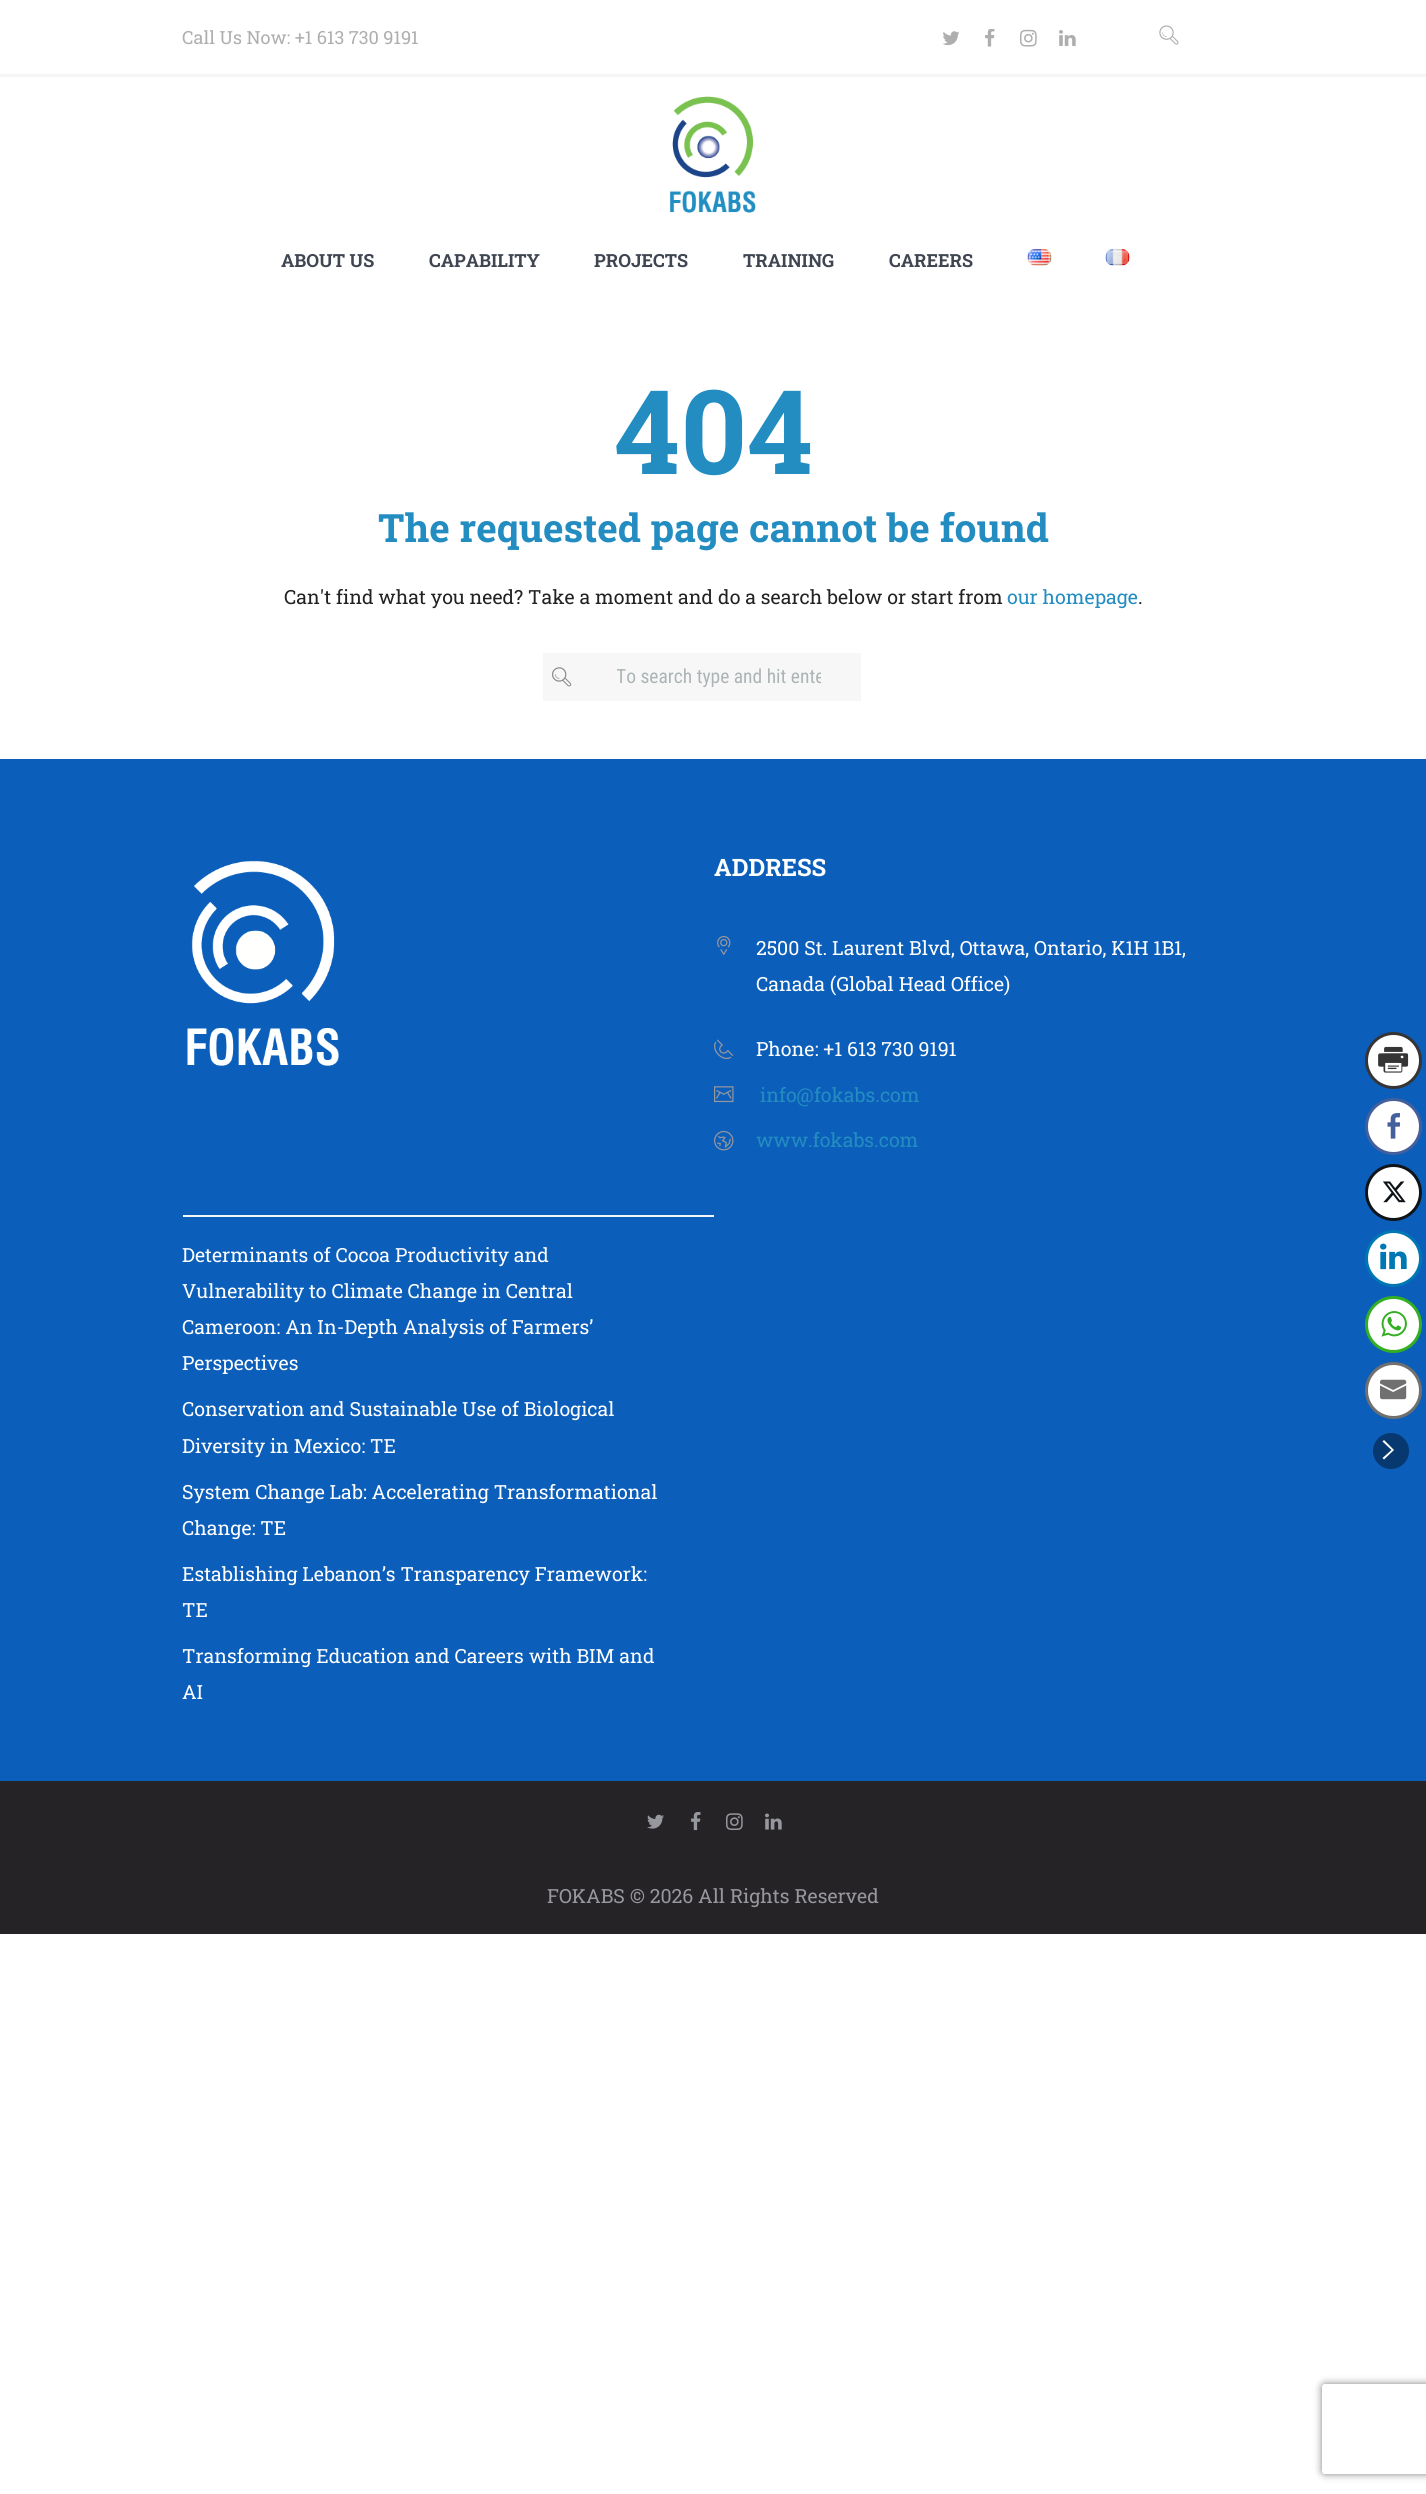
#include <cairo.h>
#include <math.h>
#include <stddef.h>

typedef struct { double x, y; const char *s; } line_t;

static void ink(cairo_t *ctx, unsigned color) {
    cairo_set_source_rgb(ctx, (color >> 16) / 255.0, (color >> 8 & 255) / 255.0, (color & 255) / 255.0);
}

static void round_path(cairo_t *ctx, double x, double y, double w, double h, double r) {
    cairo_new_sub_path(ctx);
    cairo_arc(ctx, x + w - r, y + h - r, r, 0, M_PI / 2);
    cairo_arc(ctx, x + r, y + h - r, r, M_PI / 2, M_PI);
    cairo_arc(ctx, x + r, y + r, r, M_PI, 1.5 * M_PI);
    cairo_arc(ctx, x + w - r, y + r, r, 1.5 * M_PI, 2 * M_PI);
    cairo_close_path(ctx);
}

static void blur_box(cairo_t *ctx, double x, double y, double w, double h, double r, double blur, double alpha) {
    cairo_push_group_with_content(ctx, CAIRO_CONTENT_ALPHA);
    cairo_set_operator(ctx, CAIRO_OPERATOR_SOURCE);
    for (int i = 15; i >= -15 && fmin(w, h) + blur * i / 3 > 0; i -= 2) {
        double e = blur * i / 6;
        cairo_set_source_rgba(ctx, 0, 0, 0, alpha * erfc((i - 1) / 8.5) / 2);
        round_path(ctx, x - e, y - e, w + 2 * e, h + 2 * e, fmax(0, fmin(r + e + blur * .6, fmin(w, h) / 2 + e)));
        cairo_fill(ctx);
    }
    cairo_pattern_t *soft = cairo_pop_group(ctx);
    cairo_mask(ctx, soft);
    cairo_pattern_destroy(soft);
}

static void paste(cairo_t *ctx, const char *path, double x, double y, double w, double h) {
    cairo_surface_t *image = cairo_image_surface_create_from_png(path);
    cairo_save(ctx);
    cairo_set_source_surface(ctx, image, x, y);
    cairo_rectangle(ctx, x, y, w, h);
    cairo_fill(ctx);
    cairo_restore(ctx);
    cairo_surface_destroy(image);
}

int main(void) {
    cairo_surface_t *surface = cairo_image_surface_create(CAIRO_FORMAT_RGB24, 1426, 2494);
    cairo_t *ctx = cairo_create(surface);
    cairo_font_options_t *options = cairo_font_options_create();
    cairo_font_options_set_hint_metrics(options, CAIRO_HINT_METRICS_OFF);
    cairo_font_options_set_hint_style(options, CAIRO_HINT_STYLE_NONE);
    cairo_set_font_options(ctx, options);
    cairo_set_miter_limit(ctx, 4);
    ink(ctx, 0xFFFFFF);
    cairo_paint(ctx);
    ink(ctx, 0xF5F5F5);
    cairo_rectangle(ctx, 0, 74, 1426, 3);
    cairo_fill(ctx);
    cairo_select_font_face(ctx, "Roboto Slab", CAIRO_FONT_SLANT_NORMAL, CAIRO_FONT_WEIGHT_NORMAL);
    cairo_set_font_size(ctx, 18.1);
    ink(ctx, 0xAEAEAE);
    cairo_move_to(ctx, 182, 44);
    cairo_show_text(ctx, "Call Us Now: +1 613 730 9191");
    paste(ctx, "media/1.png", 942, 31, 17, 15);
    paste(ctx, "media/2.png", 985, 29, 10, 18);
    paste(ctx, "media/3.png", 1020, 29, 17, 18);
    paste(ctx, "media/4.png", 1059, 30, 17, 16);
    paste(ctx, "media/5.png", 1159, 25, 20, 20);
    paste(ctx, "media/6.png", 669, 96, 87, 117);
    cairo_select_font_face(ctx, "Roboto Slab", CAIRO_FONT_SLANT_NORMAL, CAIRO_FONT_WEIGHT_BOLD);
    ink(ctx, 0x404552);
    {
        static const line_t items[] = {
            {281, 267, "ABOUT US"},
            {429, 267, "CAPABILITY"},
            {594, 267, "PROJECTS"},
            {743, 267, "TRAINING"},
            {889, 267, "CAREERS"},
        };
        for (size_t i = 0; i < sizeof items / sizeof *items; i++) {
            cairo_move_to(ctx, items[i].x, items[i].y);
            cairo_show_text(ctx, items[i].s);
        }
    }
    paste(ctx, "media/7.png", 1027, 249, 25, 17);
    paste(ctx, "media/8.png", 1105, 249, 25, 17);
    cairo_set_font_size(ctx, 117);
    ink(ctx, 0x238DC1);
    cairo_move_to(ctx, 614, 474);
    cairo_show_text(ctx, "404");
    cairo_set_font_size(ctx, 39);
    cairo_move_to(ctx, 378, 542);
    cairo_show_text(ctx, "The requested page cannot be found");
    cairo_select_font_face(ctx, "Roboto Slab", CAIRO_FONT_SLANT_NORMAL, CAIRO_FONT_WEIGHT_NORMAL);
    cairo_set_font_size(ctx, 19.5);
    ink(ctx, 0x222222);
    cairo_move_to(ctx, 284, 604);
    cairo_show_text(ctx, "Can't find what you need? Take a moment and do a search below or start from");
    ink(ctx, 0x238DC1);
    cairo_move_to(ctx, 1007, 604);
    cairo_show_text(ctx, "our homepage");
    ink(ctx, 0x222222);
    cairo_move_to(ctx, 1138, 604);
    cairo_show_text(ctx, ".");
    ink(ctx, 0xF7F7F7);
    cairo_rectangle(ctx, 543, 653, 318, 48);
    cairo_fill(ctx);
    paste(ctx, "media/9.png", 552, 667, 20, 20);
    cairo_save(ctx);
    cairo_rectangle(ctx, 617, 666, 204, 23);
    cairo_clip(ctx);
    cairo_select_font_face(ctx, "Roboto Condensed", CAIRO_FONT_SLANT_NORMAL, CAIRO_FONT_WEIGHT_NORMAL);
    ink(ctx, 0xACB4B6);
    cairo_move_to(ctx, 616, 683);
    cairo_show_text(ctx, "To search type and hit ente");
    cairo_restore(ctx);
    ink(ctx, 0x0B5EBA);
    cairo_rectangle(ctx, 0, 759, 1426, 1022);
    cairo_fill(ctx);
    paste(ctx, "media/10.png", 187, 860, 152, 206);
    cairo_select_font_face(ctx, "Roboto Slab", CAIRO_FONT_SLANT_NORMAL, CAIRO_FONT_WEIGHT_BOLD);
    cairo_set_font_size(ctx, 24);
    ink(ctx, 0xFFFFFF);
    cairo_move_to(ctx, 714, 876);
    cairo_show_text(ctx, "ADDRESS");
    paste(ctx, "media/11.png", 717, 935, 14, 21);
    cairo_select_font_face(ctx, "Roboto Slab", CAIRO_FONT_SLANT_NORMAL, CAIRO_FONT_WEIGHT_NORMAL);
    cairo_set_font_size(ctx, 19.5);
    cairo_move_to(ctx, 756, 955);
    cairo_show_text(ctx, "2500 St. Laurent Blvd, Ottawa, Ontario, K1H 1B1,");
    cairo_move_to(ctx, 756, 991);
    cairo_show_text(ctx, "Canada (Global Head Office)");
    paste(ctx, "media/12.png", 714, 1039, 20, 21);
    cairo_move_to(ctx, 756, 1056);
    cairo_show_text(ctx, "Phone: +1 613 730 9191");
    paste(ctx, "media/13.png", 714, 1086, 20, 17);
    ink(ctx, 0x238DC1);
    cairo_move_to(ctx, 760, 1102);
    cairo_show_text(ctx, "info@fokabs.com");
    paste(ctx, "media/14.png", 714, 1130, 20, 21);
    cairo_move_to(ctx, 756, 1147);
    cairo_show_text(ctx, "www.fokabs.com");
    ink(ctx, 0xF4F7F9);
    cairo_rectangle(ctx, 183, 1215, 531, 2);
    cairo_fill(ctx);
    ink(ctx, 0xFFFFFF);
    {
        static const line_t items[] = {
            {182, 1262, "Determinants of Cocoa Productivity and"},
            {182, 1298, "Vulnerability to Climate Change in Central"},
            {182, 1334, "Cameroon: An In-Depth Analysis of Farmers’"},
            {182, 1370, "Perspectives"},
            {182, 1416, "Conservation and Sustainable Use of Biological"},
            {182, 1453, "Diversity in Mexico: TE"},
            {182, 1499, "System Change Lab: Accelerating Transformational"},
            {182, 1535, "Change: TE"},
            {182, 1581, "Establishing Lebanon’s Transparency Framework:"},
            {182, 1617, "TE"},
            {182, 1663, "Transforming Education and Careers with BIM and"},
            {182, 1699, "AI"},
        };
        for (size_t i = 0; i < sizeof items / sizeof *items; i++) {
            cairo_move_to(ctx, items[i].x, items[i].y);
            cairo_show_text(ctx, items[i].s);
        }
    }
    ink(ctx, 0x252326);
    cairo_rectangle(ctx, 0, 1781, 1426, 153);
    cairo_fill(ctx);
    paste(ctx, "media/15.png", 647, 1814, 17, 15);
    paste(ctx, "media/16.png", 691, 1812, 10, 19);
    paste(ctx, "media/17.png", 726, 1813, 17, 18);
    paste(ctx, "media/18.png", 765, 1813, 17, 17);
    ink(ctx, 0x97979E);
    cairo_move_to(ctx, 547, 1903);
    cairo_show_text(ctx, "FOKABS © 2026 All Rights Reserved");
    ink(ctx, 0xFFFFFF);
    cairo_new_path(ctx);
    cairo_arc(ctx, 1393.5, 1060.5, 27, 0, 2 * M_PI);
    cairo_fill_preserve(ctx);
    ink(ctx, 0x353535);
    cairo_set_line_width(ctx, 3);
    cairo_stroke(ctx);
    paste(ctx, "media/19.png", 1378, 1046, 31, 27);
    ink(ctx, 0xFFFFFF);
    cairo_arc(ctx, 1393.5, 1126.5, 27, 0, 2 * M_PI);
    cairo_fill_preserve(ctx);
    ink(ctx, 0x43609C);
    cairo_stroke(ctx);
    paste(ctx, "media/20.png", 1387, 1113, 14, 26);
    ink(ctx, 0xFFFFFF);
    cairo_arc(ctx, 1393.5, 1192.5, 27, 0, 2 * M_PI);
    cairo_fill_preserve(ctx);
    ink(ctx, 0x0F1419);
    cairo_stroke(ctx);
    paste(ctx, "media/21.png", 1383, 1181, 23, 22);
    ink(ctx, 0xFFFFFF);
    cairo_arc(ctx, 1393.5, 1258.5, 27, 0, 2 * M_PI);
    cairo_fill_preserve(ctx);
    ink(ctx, 0x0077B5);
    cairo_stroke(ctx);
    paste(ctx, "media/22.png", 1380, 1243, 27, 27);
    ink(ctx, 0xFFFFFF);
    cairo_arc(ctx, 1393.5, 1324.5, 27, 0, 2 * M_PI);
    cairo_fill_preserve(ctx);
    ink(ctx, 0x34AF23);
    cairo_stroke(ctx);
    paste(ctx, "media/23.png", 1381, 1311, 26, 26);
    ink(ctx, 0xFFFFFF);
    cairo_arc(ctx, 1393.5, 1390.5, 27, 0, 2 * M_PI);
    cairo_fill_preserve(ctx);
    ink(ctx, 0x717070);
    cairo_stroke(ctx);
    paste(ctx, "media/24.png", 1380, 1379, 27, 21);
    ink(ctx, 0x073870);
    cairo_arc(ctx, 1391, 1451, 18, 0, 2 * M_PI);
    cairo_fill(ctx);
    ink(ctx, 0xFFFFFF);
    cairo_new_path(ctx);
    cairo_move_to(ctx, 1382.5, 1458);
    cairo_line_to(ctx, 1384, 1459.5);
    cairo_line_to(ctx, 1394, 1450);
    cairo_line_to(ctx, 1384, 1440);
    cairo_line_to(ctx, 1382.5, 1441.5);
    cairo_line_to(ctx, 1391.5, 1450);
    cairo_fill(ctx);
    cairo_save(ctx);
    cairo_set_fill_rule(ctx, CAIRO_FILL_RULE_EVEN_ODD);
    cairo_new_path(ctx);
    cairo_move_to(ctx, 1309, 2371);
    cairo_line_to(ctx, 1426, 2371);
    cairo_line_to(ctx, 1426, 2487);
    cairo_line_to(ctx, 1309, 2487);
    cairo_close_path(ctx);
    cairo_move_to(ctx, 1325, 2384);
    cairo_line_to(ctx, 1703, 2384);
    cairo_curve_to(ctx, 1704.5, 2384, 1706, 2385.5, 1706, 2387);
    cairo_line_to(ctx, 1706, 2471);
    cairo_curve_to(ctx, 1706, 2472.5, 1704.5, 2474, 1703, 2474);
    cairo_line_to(ctx, 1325, 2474);
    cairo_curve_to(ctx, 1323.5, 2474, 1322, 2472.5, 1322, 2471);
    cairo_line_to(ctx, 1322, 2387);
    cairo_curve_to(ctx, 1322, 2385.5, 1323.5, 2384, 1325, 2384);
    cairo_close_path(ctx);
    cairo_clip(ctx);
    ink(ctx, 0x808080);
    blur_box(ctx, 1322, 2384, 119, 90, 3, 4, 1);
    cairo_restore(ctx);
    cairo_surface_write_to_png(surface, "image.png");
    cairo_font_options_destroy(options);
    cairo_destroy(ctx);
    cairo_surface_destroy(surface);
    return 0;
}
